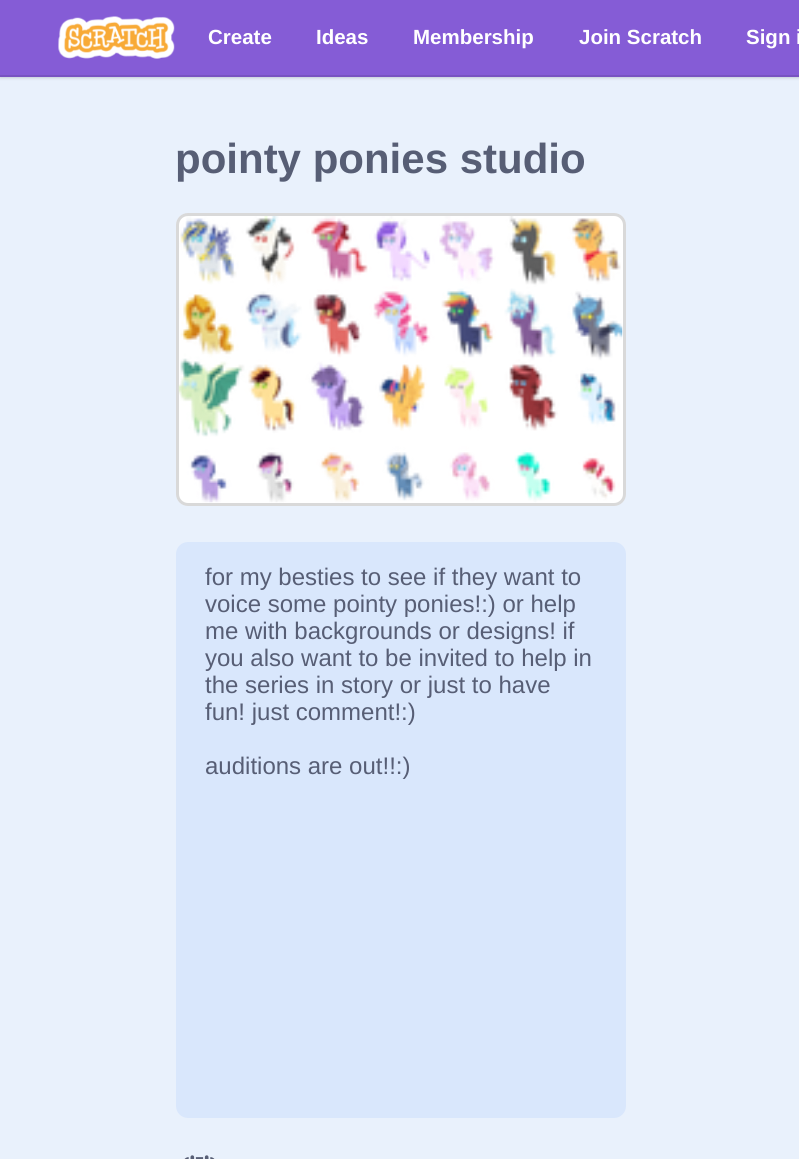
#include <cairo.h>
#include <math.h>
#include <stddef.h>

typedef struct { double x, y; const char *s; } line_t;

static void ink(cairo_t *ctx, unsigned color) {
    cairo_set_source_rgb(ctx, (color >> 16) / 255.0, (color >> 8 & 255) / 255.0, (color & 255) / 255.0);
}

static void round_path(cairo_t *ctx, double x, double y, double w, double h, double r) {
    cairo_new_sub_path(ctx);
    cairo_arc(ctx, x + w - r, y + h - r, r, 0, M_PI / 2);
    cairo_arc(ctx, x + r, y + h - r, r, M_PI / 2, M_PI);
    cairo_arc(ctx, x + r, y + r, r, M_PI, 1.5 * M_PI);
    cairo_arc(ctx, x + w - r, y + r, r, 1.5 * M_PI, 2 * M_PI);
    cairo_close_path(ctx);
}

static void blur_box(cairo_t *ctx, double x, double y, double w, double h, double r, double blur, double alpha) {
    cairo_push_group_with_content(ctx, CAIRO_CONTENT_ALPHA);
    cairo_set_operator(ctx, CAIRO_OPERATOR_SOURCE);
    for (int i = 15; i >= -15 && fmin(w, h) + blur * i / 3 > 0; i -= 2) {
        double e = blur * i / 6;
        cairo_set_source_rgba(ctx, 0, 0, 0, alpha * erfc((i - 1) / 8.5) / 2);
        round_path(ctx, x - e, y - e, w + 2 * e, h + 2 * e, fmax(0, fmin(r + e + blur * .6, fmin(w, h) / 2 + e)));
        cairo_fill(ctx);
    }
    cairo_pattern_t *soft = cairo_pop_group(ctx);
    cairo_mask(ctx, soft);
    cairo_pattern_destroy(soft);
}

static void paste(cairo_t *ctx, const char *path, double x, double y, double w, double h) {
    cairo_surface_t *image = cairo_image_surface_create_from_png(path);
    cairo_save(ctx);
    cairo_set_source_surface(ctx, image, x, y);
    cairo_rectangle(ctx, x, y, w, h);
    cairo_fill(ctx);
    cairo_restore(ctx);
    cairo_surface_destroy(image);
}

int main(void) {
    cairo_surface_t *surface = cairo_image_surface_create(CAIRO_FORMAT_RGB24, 799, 1159);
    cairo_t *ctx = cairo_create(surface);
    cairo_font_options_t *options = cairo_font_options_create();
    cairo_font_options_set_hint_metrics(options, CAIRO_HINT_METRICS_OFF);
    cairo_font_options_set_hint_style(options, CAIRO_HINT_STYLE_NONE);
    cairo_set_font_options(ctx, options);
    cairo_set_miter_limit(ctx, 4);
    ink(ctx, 0xE9F1FC);
    cairo_paint(ctx);
    ink(ctx, 0x000000);
    blur_box(ctx, 0, 0, 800, 77, 0, 2, 0.25);
    ink(ctx, 0x855CD6);
    cairo_rectangle(ctx, 0, 0, 799, 75);
    cairo_fill(ctx);
    ink(ctx, 0x7853C1);
    cairo_rectangle(ctx, 0, 75, 799, 2);
    cairo_fill(ctx);
    paste(ctx, "media/1.png", 58, 16, 117, 43);
    cairo_select_font_face(ctx, "Liberation Sans", CAIRO_FONT_SLANT_NORMAL, CAIRO_FONT_WEIGHT_BOLD);
    cairo_set_font_size(ctx, 20.5);
    ink(ctx, 0xFFFFFF);
    {
        static const line_t items[] = {
            {208, 44, "Create"},
            {316, 44, "Ideas"},
            {413, 44, "Membership"},
            {579, 44, "Join Scratch"},
            {746, 44, "Sign i"},
        };
        for (size_t i = 0; i < sizeof items / sizeof *items; i++) {
            cairo_move_to(ctx, items[i].x, items[i].y);
            cairo_show_text(ctx, items[i].s);
        }
    }
    cairo_set_font_size(ctx, 42);
    ink(ctx, 0x575E75);
    cairo_move_to(ctx, 175, 173);
    cairo_show_text(ctx, "pointy ponies studio");
    ink(ctx, 0xFFFFFF);
    round_path(ctx, 176, 213, 450, 293, 12);
    cairo_fill(ctx);
    round_path(ctx, 177.5, 214.5, 447, 290, 10.5);
    cairo_set_source_rgba(ctx, 0, 0, 0, 0.15);
    cairo_set_line_width(ctx, 3);
    cairo_stroke(ctx);
    paste(ctx, "media/2.png", 178, 216, 445, 287);
    ink(ctx, 0xD9E7FC);
    round_path(ctx, 176, 542, 450, 576, 12);
    cairo_fill(ctx);
    cairo_select_font_face(ctx, "Liberation Sans", CAIRO_FONT_SLANT_NORMAL, CAIRO_FONT_WEIGHT_NORMAL);
    cairo_set_font_size(ctx, 24);
    ink(ctx, 0x575E75);
    {
        static const line_t items[] = {
            {205, 585, "for my besties to see if they want to"},
            {205, 612, "voice some pointy ponies!:) or help"},
            {205, 639, "me with backgrounds or designs! if"},
            {205, 666, "you also want to be invited to help in"},
            {205, 693, "the series in story or just to have"},
            {205, 720, "fun! just comment!:)"},
            {205, 774, "auditions are out!!:)"},
        };
        for (size_t i = 0; i < sizeof items / sizeof *items; i++) {
            cairo_move_to(ctx, items[i].x, items[i].y);
            cairo_show_text(ctx, items[i].s);
        }
    }
    paste(ctx, "media/3.png", 184, 1155, 31, 4);
    cairo_surface_write_to_png(surface, "image.png");
    cairo_font_options_destroy(options);
    cairo_destroy(ctx);
    cairo_surface_destroy(surface);
    return 0;
}
